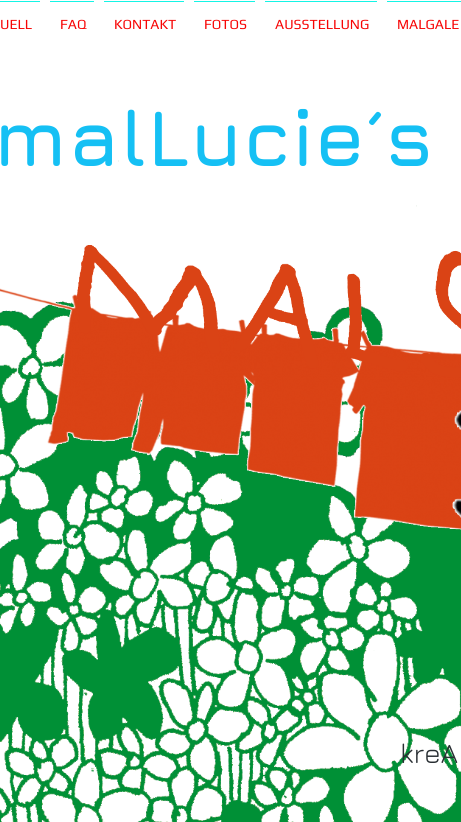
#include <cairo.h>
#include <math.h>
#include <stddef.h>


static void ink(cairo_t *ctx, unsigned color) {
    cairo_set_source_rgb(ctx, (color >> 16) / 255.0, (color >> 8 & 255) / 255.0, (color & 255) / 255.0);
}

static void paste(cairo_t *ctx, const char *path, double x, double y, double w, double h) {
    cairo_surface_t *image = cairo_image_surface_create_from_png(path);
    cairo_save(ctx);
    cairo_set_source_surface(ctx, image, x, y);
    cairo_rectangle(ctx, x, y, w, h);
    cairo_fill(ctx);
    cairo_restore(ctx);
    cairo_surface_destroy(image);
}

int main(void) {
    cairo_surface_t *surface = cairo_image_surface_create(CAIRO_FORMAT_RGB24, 461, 822);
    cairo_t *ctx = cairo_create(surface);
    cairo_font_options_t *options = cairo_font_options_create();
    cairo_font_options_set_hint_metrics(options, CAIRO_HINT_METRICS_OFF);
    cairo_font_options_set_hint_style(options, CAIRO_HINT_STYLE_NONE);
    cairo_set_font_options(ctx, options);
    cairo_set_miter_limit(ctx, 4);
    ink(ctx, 0xFFFFFF);
    cairo_paint(ctx);
    ink(ctx, 0x15F4E5);
    cairo_rectangle(ctx, 0, 1, 40, 1);
    cairo_fill(ctx);
    cairo_select_font_face(ctx, "Play", CAIRO_FONT_SLANT_NORMAL, CAIRO_FONT_WEIGHT_NORMAL);
    cairo_set_font_size(ctx, 14);
    ink(ctx, 0xF70505);
    cairo_move_to(ctx, 0, 29);
    cairo_show_text(ctx, "UELL");
    ink(ctx, 0x15F4E5);
    cairo_rectangle(ctx, 50, 1, 44, 1);
    cairo_fill(ctx);
    ink(ctx, 0xF70505);
    cairo_move_to(ctx, 60, 29);
    cairo_show_text(ctx, "FAQ");
    ink(ctx, 0x15F4E5);
    cairo_rectangle(ctx, 104, 1, 80, 1);
    cairo_fill(ctx);
    ink(ctx, 0xF70505);
    cairo_move_to(ctx, 114, 29);
    cairo_show_text(ctx, "KONTAKT");
    ink(ctx, 0x15F4E5);
    cairo_rectangle(ctx, 194, 1, 61, 1);
    cairo_fill(ctx);
    ink(ctx, 0xF70505);
    cairo_move_to(ctx, 204, 29);
    cairo_show_text(ctx, "FOTOS");
    ink(ctx, 0x15F4E5);
    cairo_rectangle(ctx, 265, 1, 112, 1);
    cairo_fill(ctx);
    ink(ctx, 0xF70505);
    cairo_move_to(ctx, 275, 29);
    cairo_show_text(ctx, "AUSSTELLUNG");
    ink(ctx, 0x15F4E5);
    cairo_rectangle(ctx, 387, 1, 74, 1);
    cairo_fill(ctx);
    ink(ctx, 0xF70505);
    cairo_move_to(ctx, 397, 29);
    cairo_show_text(ctx, "MALGALE");
    paste(ctx, "media/3.png", 0, 160, 461, 662);
    cairo_select_font_face(ctx, "Jura", CAIRO_FONT_SLANT_NORMAL, CAIRO_FONT_WEIGHT_BOLD);
    cairo_set_font_size(ctx, 80);
    ink(ctx, 0x15C0F4);
    cairo_move_to(ctx, -7, 166);
    cairo_show_text(ctx, "malLucie´s");
    paste(ctx, "media/1.png", 0, 245, 461, 285);
    paste(ctx, "media/2.png", 452, 410, 9, 108);
    cairo_select_font_face(ctx, "Jura", CAIRO_FONT_SLANT_NORMAL, CAIRO_FONT_WEIGHT_NORMAL);
    cairo_set_font_size(ctx, 28);
    ink(ctx, 0x292F33);
    cairo_move_to(ctx, 400, 763);
    cairo_show_text(ctx, "kreA");
    cairo_surface_write_to_png(surface, "image.png");
    cairo_font_options_destroy(options);
    cairo_destroy(ctx);
    cairo_surface_destroy(surface);
    return 0;
}
